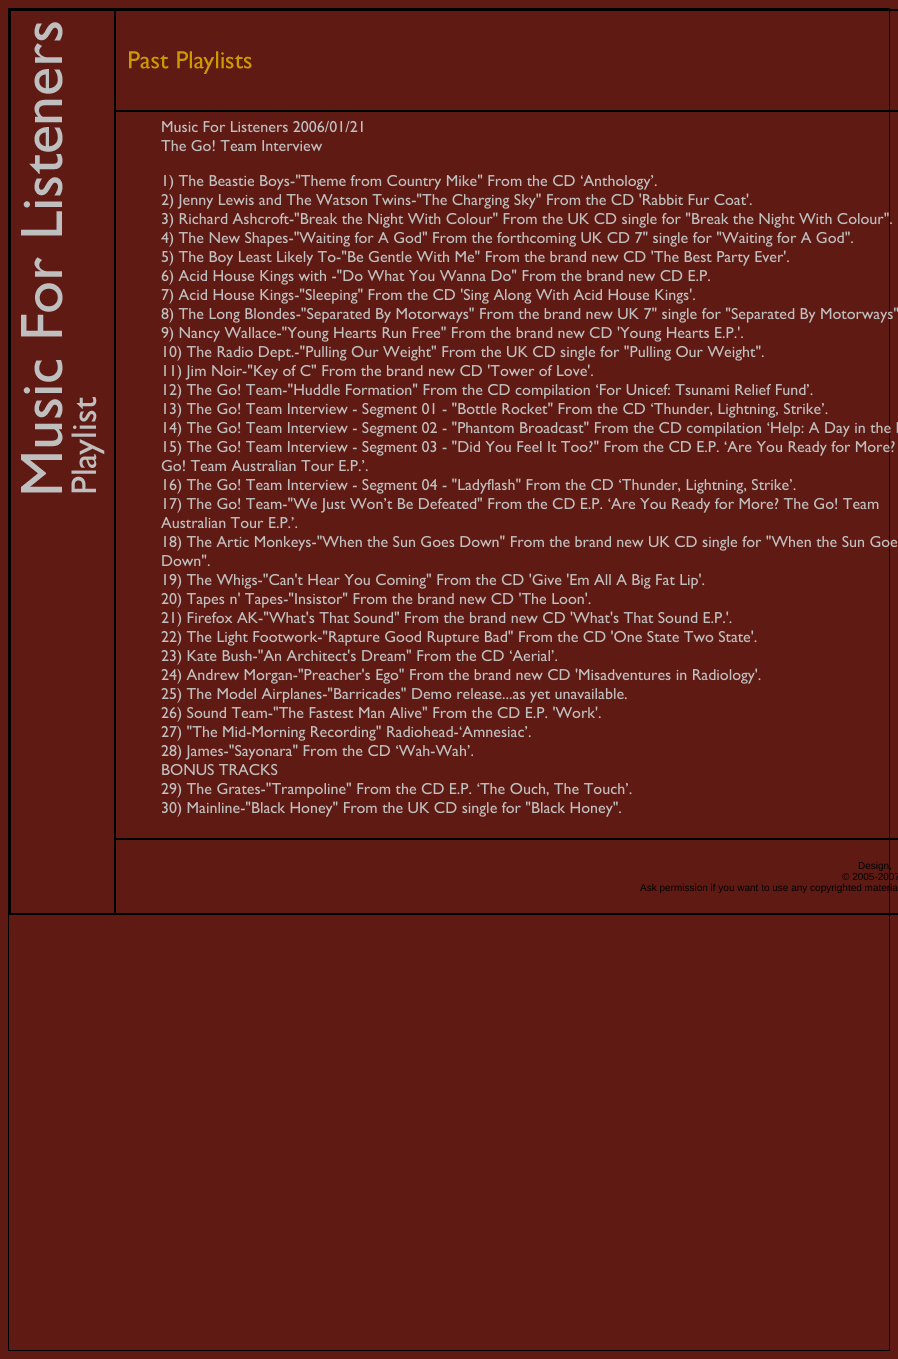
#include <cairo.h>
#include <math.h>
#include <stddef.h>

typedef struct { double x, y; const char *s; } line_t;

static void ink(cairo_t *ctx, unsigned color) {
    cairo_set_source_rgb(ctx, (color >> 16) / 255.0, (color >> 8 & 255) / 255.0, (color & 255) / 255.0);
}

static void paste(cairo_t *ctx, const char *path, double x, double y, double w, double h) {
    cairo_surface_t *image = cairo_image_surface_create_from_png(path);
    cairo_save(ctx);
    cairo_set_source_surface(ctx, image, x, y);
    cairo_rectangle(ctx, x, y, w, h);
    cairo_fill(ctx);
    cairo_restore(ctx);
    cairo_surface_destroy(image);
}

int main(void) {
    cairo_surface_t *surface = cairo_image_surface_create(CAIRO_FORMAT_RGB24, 898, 1359);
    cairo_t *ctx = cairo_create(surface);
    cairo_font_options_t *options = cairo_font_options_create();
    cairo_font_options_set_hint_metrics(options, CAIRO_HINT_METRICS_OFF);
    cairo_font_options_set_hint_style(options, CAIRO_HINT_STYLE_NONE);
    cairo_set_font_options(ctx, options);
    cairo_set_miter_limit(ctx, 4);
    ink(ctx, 0x5F1A13);
    cairo_paint(ctx);
    cairo_rectangle(ctx, 8.5, 8.5, 881, 1342);
    ink(ctx, 0x000000);
    cairo_set_line_width(ctx, 1);
    cairo_stroke(ctx);
    cairo_rectangle(ctx, 9.5, 9.5, 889, 905);
    cairo_stroke(ctx);
    cairo_rectangle(ctx, 10.5, 10.5, 104, 903);
    cairo_stroke(ctx);
    paste(ctx, "media/1.png", 20, 22, 85, 471);
    cairo_rectangle(ctx, 115.5, 10.5, 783, 100);
    cairo_stroke(ctx);
    paste(ctx, "media/2.png", 129, 46, 128, 32);
    cairo_rectangle(ctx, 115.5, 111.5, 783, 727);
    cairo_stroke(ctx);
    cairo_select_font_face(ctx, "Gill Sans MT", CAIRO_FONT_SLANT_NORMAL, CAIRO_FONT_WEIGHT_NORMAL);
    cairo_set_font_size(ctx, 16);
    ink(ctx, 0xC0C0C0);
    {
        static const line_t items[] = {
            {161, 132, "Music For Listeners 2006/01/21"},
            {161, 151, "The Go! Team Interview"},
            {161, 186, "1) The Beastie Boys-\"Theme from Country Mike\" From the CD ‘Anthology’."},
            {161, 205, "2) Jenny Lewis and The Watson Twins-\"The Charging Sky\" From the CD 'Rabbit Fur Coat'."},
            {161, 224, "3) Richard Ashcroft-\"Break the Night With Colour\" From the UK CD single for \"Break the Night With Colour\"."},
            {161, 243, "4) The New Shapes-\"Waiting for A God\" From the forthcoming UK CD 7\" single for \"Waiting for A God\"."},
            {161, 262, "5) The Boy Least Likely To-\"Be Gentle With Me\" From the brand new CD 'The Best Party Ever'."},
            {161, 281, "6) Acid House Kings with -\"Do What You Wanna Do\" From the brand new CD E.P."},
            {161, 300, "7) Acid House Kings-\"Sleeping\" From the CD 'Sing Along With Acid House Kings'."},
            {161, 319, "8) The Long Blondes-\"Separated By Motorways\" From the brand new UK 7\" single for \"Separated By Motorways\""},
            {161, 338, "9) Nancy Wallace-\"Young Hearts Run Free\" From the brand new CD 'Young Hearts E.P.'."},
            {161, 357, "10) The Radio Dept.-\"Pulling Our Weight\" From the UK CD single for \"Pulling Our Weight\"."},
            {161, 376, "11) Jim Noir-\"Key of C\" From the brand new CD 'Tower of Love'."},
            {161, 395, "12) The Go! Team-\"Huddle Formation\" From the CD compilation ‘For Unicef: Tsunami Relief Fund’."},
            {161, 414, "13) The Go! Team Interview - Segment 01 - \"Bottle Rocket\" From the CD ‘Thunder, Lightning, Strike’."},
            {161, 433, "14) The Go! Team Interview - Segment 02 - \"Phantom Broadcast\" From the CD compilation ‘Help: A Day in the L"},
            {161, 452, "15) The Go! Team Interview - Segment 03 - \"Did You Feel It Too?\" From the CD E.P. ‘Are You Ready for More?"},
            {161, 471, "Go! Team Australian Tour E.P.’."},
            {161, 490, "16) The Go! Team Interview - Segment 04 - \"Ladyflash\" From the CD ‘Thunder, Lightning, Strike’."},
            {161, 509, "17) The Go! Team-\"We Just Won’t Be Defeated\" From the CD E.P. ‘Are You Ready for More? The Go! Team"},
            {161, 528, "Australian Tour E.P.’."},
            {161, 547, "18) The Artic Monkeys-\"When the Sun Goes Down\" From the brand new UK CD single for \"When the Sun Goe"},
            {161, 566, "Down\"."},
            {161, 585, "19) The Whigs-\"Can't Hear You Coming\" From the CD 'Give 'Em All A Big Fat Lip'."},
            {161, 604, "20) Tapes n' Tapes-\"Insistor\" From the brand new CD 'The Loon'."},
            {161, 623, "21) Firefox AK-\"What's That Sound\" From the brand new CD 'What's That Sound E.P.'."},
            {161, 642, "22) The Light Footwork-\"Rapture Good Rupture Bad\" From the CD 'One State Two State'."},
            {161, 661, "23) Kate Bush-\"An Architect's Dream\" From the CD ‘Aerial’."},
            {161, 680, "24) Andrew Morgan-\"Preacher's Ego\" From the brand new CD 'Misadventures in Radiology'."},
            {161, 699, "25) The Model Airplanes-\"Barricades\" Demo release...as yet unavailable."},
            {161, 718, "26) Sound Team-\"The Fastest Man Alive\" From the CD E.P. 'Work'."},
            {161, 737, "27) \"The Mid-Morning Recording\" Radiohead-‘Amnesiac’."},
            {161, 756, "28) James-\"Sayonara\" From the CD ‘Wah-Wah’."},
            {161, 775, "BONUS TRACKS"},
            {161, 794, "29) The Grates-\"Trampoline\" From the CD E.P. ‘The Ouch, The Touch’."},
            {161, 813, "30) Mainline-\"Black Honey\" From the UK CD single for \"Black Honey\"."},
        };
        for (size_t i = 0; i < sizeof items / sizeof *items; i++) {
            cairo_move_to(ctx, items[i].x, items[i].y);
            cairo_show_text(ctx, items[i].s);
        }
    }
    cairo_rectangle(ctx, 115.5, 839.5, 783, 74);
    ink(ctx, 0x000000);
    cairo_stroke(ctx);
    cairo_select_font_face(ctx, "Liberation Sans", CAIRO_FONT_SLANT_NORMAL, CAIRO_FONT_WEIGHT_NORMAL);
    cairo_set_font_size(ctx, 10);
    {
        static const line_t items[] = {
            {858, 869, "Design,"},
            {842, 880, "© 2005-2007"},
            {640, 891, "Ask permission if you want to use any copyrighted materia"},
        };
        for (size_t i = 0; i < sizeof items / sizeof *items; i++) {
            cairo_move_to(ctx, items[i].x, items[i].y);
            cairo_show_text(ctx, items[i].s);
        }
    }
    cairo_surface_write_to_png(surface, "image.png");
    cairo_font_options_destroy(options);
    cairo_destroy(ctx);
    cairo_surface_destroy(surface);
    return 0;
}
